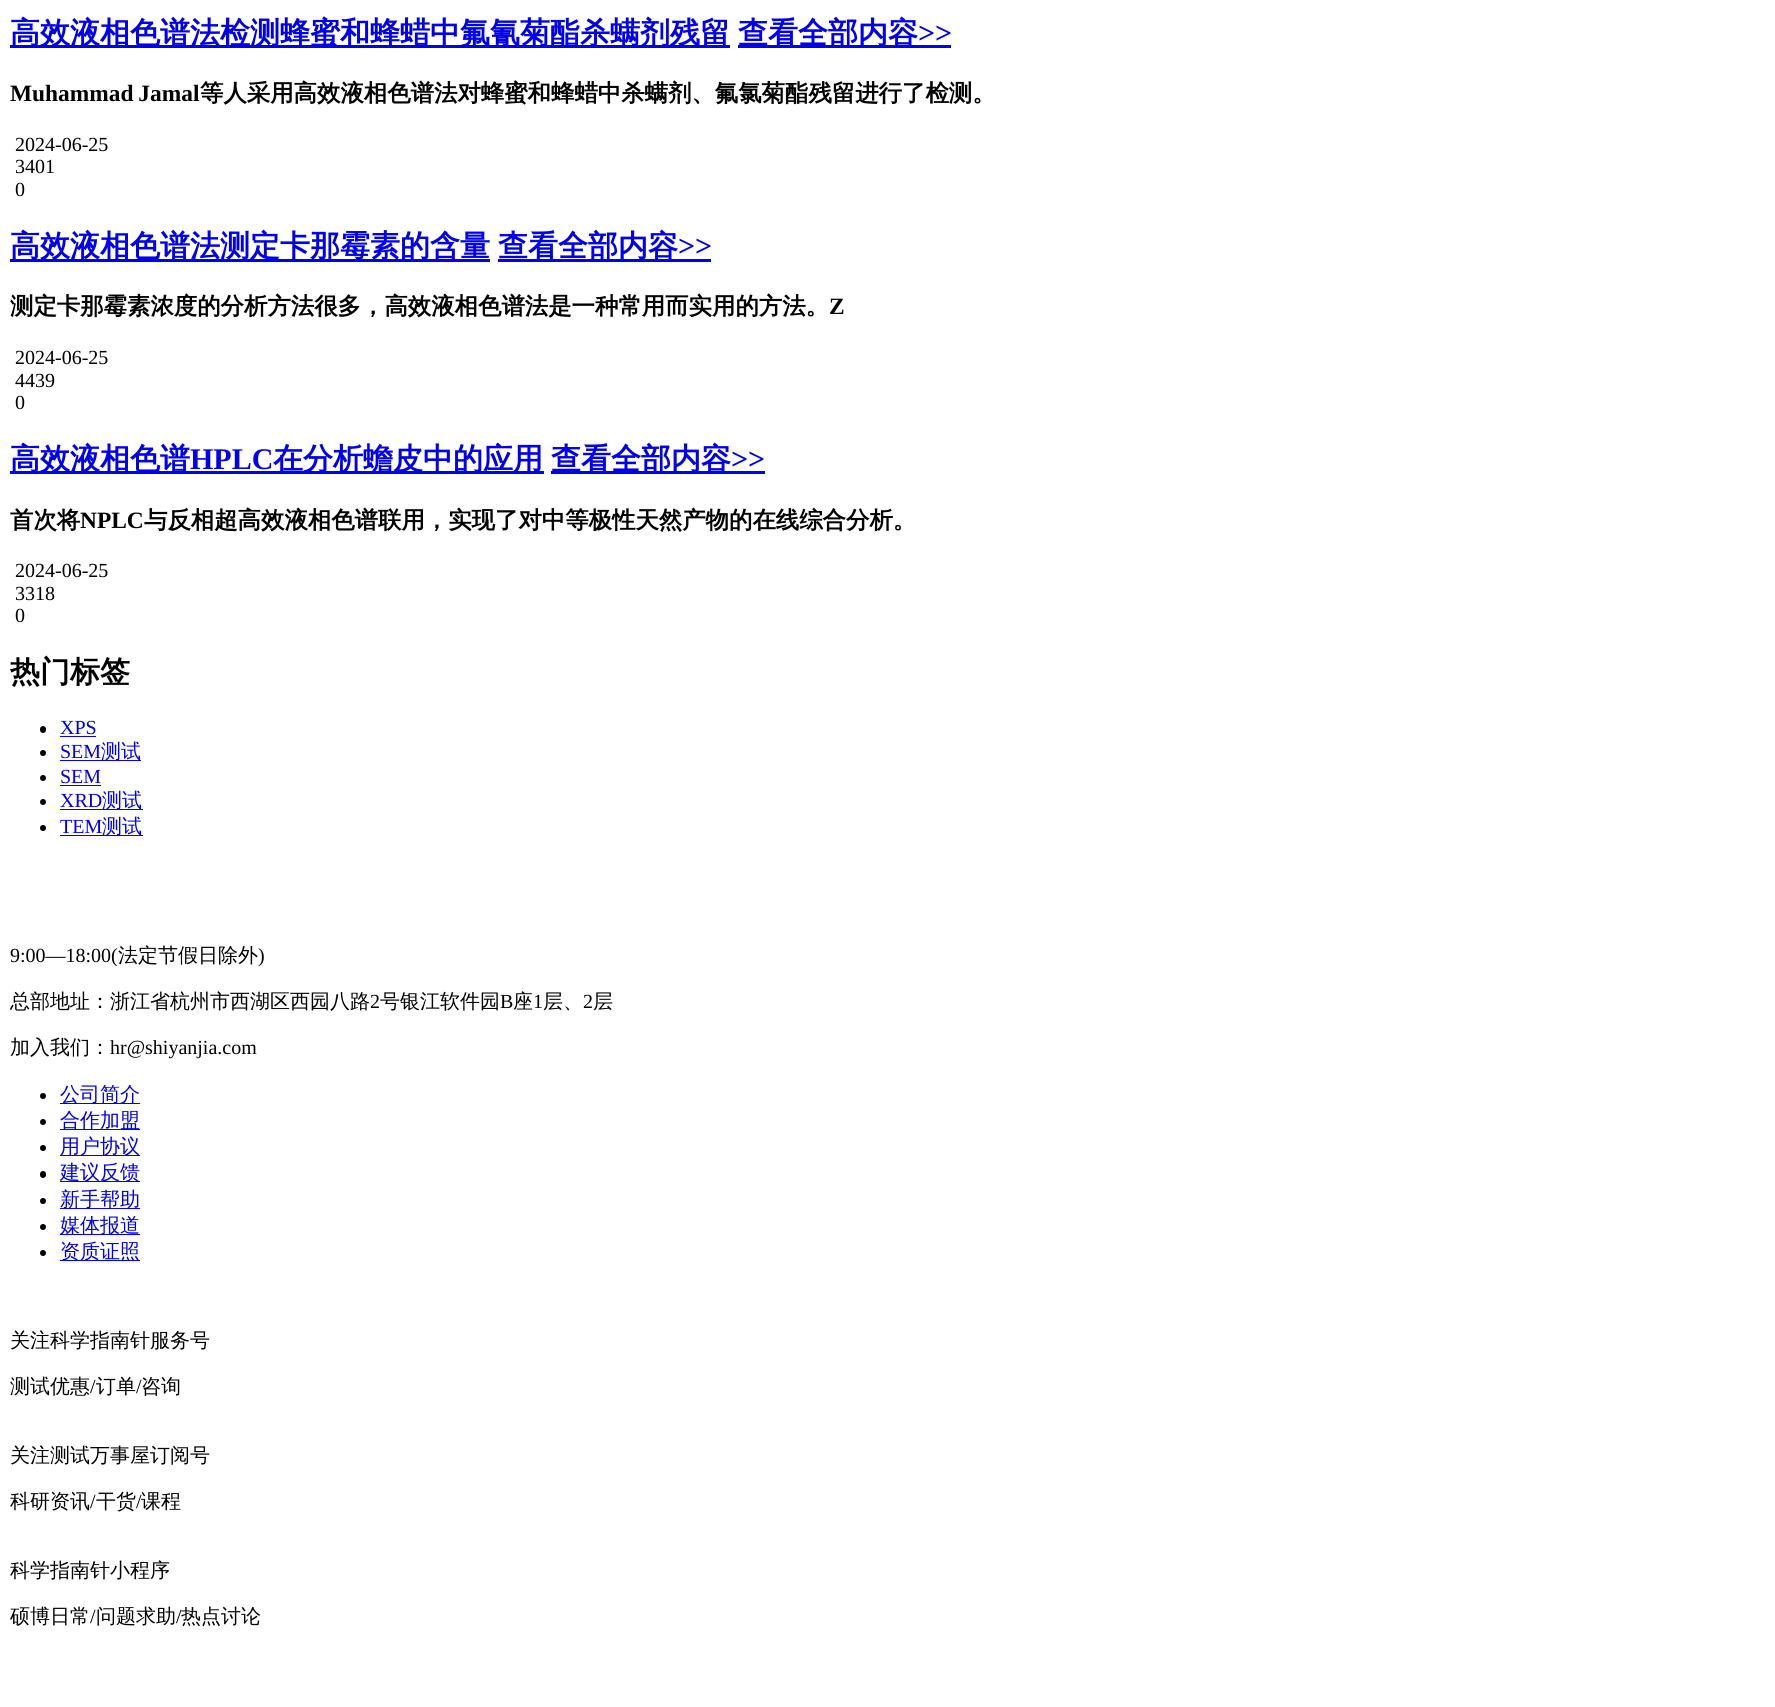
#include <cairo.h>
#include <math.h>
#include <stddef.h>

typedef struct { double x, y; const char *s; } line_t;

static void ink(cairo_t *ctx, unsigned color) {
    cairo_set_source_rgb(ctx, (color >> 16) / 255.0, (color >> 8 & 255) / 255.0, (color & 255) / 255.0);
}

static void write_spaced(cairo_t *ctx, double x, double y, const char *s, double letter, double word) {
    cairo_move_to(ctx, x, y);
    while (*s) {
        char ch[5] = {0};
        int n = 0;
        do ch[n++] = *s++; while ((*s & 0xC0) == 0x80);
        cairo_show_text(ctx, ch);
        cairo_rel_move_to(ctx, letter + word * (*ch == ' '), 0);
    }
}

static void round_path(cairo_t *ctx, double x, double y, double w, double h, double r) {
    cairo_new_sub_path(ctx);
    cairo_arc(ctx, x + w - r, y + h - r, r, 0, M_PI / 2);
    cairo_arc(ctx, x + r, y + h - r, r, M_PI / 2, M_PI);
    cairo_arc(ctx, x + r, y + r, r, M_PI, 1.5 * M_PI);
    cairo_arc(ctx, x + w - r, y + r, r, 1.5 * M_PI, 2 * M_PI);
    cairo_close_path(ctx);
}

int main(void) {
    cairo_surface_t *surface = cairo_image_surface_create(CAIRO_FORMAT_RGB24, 1775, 1707);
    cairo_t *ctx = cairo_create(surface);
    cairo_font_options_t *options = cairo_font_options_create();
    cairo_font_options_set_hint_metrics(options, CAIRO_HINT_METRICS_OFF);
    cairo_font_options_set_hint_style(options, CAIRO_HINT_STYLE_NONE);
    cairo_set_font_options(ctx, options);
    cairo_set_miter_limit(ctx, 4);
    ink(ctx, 0xFFFFFF);
    cairo_paint(ctx);
    ink(ctx, 0x0000EE);
    cairo_rectangle(ctx, 10, 45, 720, 3);
    cairo_fill(ctx);
    cairo_select_font_face(ctx, "WenQuanYi Zen Hei", CAIRO_FONT_SLANT_NORMAL, CAIRO_FONT_WEIGHT_BOLD);
    cairo_set_font_size(ctx, 30);
    cairo_move_to(ctx, 10, 43);
    cairo_show_text(ctx, "高效液相色谱法检测蜂蜜和蜂蜡中氟氰菊酯杀螨剂残留");
    cairo_rectangle(ctx, 738, 45, 213, 3);
    cairo_fill(ctx);
    cairo_move_to(ctx, 738, 43);
    cairo_show_text(ctx, "查看全部内容");
    cairo_select_font_face(ctx, "Liberation Serif", CAIRO_FONT_SLANT_NORMAL, CAIRO_FONT_WEIGHT_BOLD);
    cairo_move_to(ctx, 918, 43);
    cairo_show_text(ctx, ">>");
    cairo_set_font_size(ctx, 23.4);
    ink(ctx, 0x000000);
    write_spaced(ctx, 10, 101, "Muhammad Jamal", 0, -1);
    cairo_select_font_face(ctx, "WenQuanYi Zen Hei", CAIRO_FONT_SLANT_NORMAL, CAIRO_FONT_WEIGHT_BOLD);
    cairo_move_to(ctx, 200, 101);
    cairo_show_text(ctx, "等人采用高效液相色谱法对蜂蜜和蜂蜡中杀螨剂、氟氯菊酯残留进行了检测。");
    cairo_select_font_face(ctx, "Liberation Serif", CAIRO_FONT_SLANT_NORMAL, CAIRO_FONT_WEIGHT_NORMAL);
    cairo_set_font_size(ctx, 20);
    {
        static const line_t items[] = {
            {15, 151, "2024-06-25"},
            {15, 173, "3401"},
            {15, 196, "0"},
        };
        for (size_t i = 0; i < sizeof items / sizeof *items; i++) {
            cairo_move_to(ctx, items[i].x, items[i].y);
            cairo_show_text(ctx, items[i].s);
        }
    }
    ink(ctx, 0x0000EE);
    cairo_rectangle(ctx, 10, 259, 480, 3);
    cairo_fill(ctx);
    cairo_select_font_face(ctx, "WenQuanYi Zen Hei", CAIRO_FONT_SLANT_NORMAL, CAIRO_FONT_WEIGHT_BOLD);
    cairo_set_font_size(ctx, 30);
    cairo_move_to(ctx, 10, 256);
    cairo_show_text(ctx, "高效液相色谱法测定卡那霉素的含量");
    cairo_rectangle(ctx, 498, 259, 213, 3);
    cairo_fill(ctx);
    cairo_move_to(ctx, 498, 256);
    cairo_show_text(ctx, "查看全部内容");
    cairo_select_font_face(ctx, "Liberation Serif", CAIRO_FONT_SLANT_NORMAL, CAIRO_FONT_WEIGHT_BOLD);
    cairo_move_to(ctx, 678, 256);
    cairo_show_text(ctx, ">>");
    cairo_select_font_face(ctx, "WenQuanYi Zen Hei", CAIRO_FONT_SLANT_NORMAL, CAIRO_FONT_WEIGHT_BOLD);
    cairo_set_font_size(ctx, 23.4);
    ink(ctx, 0x000000);
    cairo_move_to(ctx, 10, 314);
    cairo_show_text(ctx, "测定卡那霉素浓度的分析方法很多，高效液相色谱法是一种常用而实用的方法。");
    cairo_select_font_face(ctx, "Liberation Serif", CAIRO_FONT_SLANT_NORMAL, CAIRO_FONT_WEIGHT_BOLD);
    cairo_move_to(ctx, 829, 314);
    cairo_show_text(ctx, "Z");
    cairo_select_font_face(ctx, "Liberation Serif", CAIRO_FONT_SLANT_NORMAL, CAIRO_FONT_WEIGHT_NORMAL);
    cairo_set_font_size(ctx, 20);
    {
        static const line_t items[] = {
            {15, 364, "2024-06-25"},
            {15, 387, "4439"},
            {15, 409, "0"},
        };
        for (size_t i = 0; i < sizeof items / sizeof *items; i++) {
            cairo_move_to(ctx, items[i].x, items[i].y);
            cairo_show_text(ctx, items[i].s);
        }
    }
    ink(ctx, 0x0000EE);
    cairo_rectangle(ctx, 10, 471, 534, 3);
    cairo_fill(ctx);
    cairo_select_font_face(ctx, "WenQuanYi Zen Hei", CAIRO_FONT_SLANT_NORMAL, CAIRO_FONT_WEIGHT_BOLD);
    cairo_set_font_size(ctx, 30);
    cairo_move_to(ctx, 10, 469);
    cairo_show_text(ctx, "高效液相色谱");
    cairo_select_font_face(ctx, "Liberation Serif", CAIRO_FONT_SLANT_NORMAL, CAIRO_FONT_WEIGHT_BOLD);
    cairo_move_to(ctx, 190, 469);
    cairo_show_text(ctx, "HPLC");
    cairo_select_font_face(ctx, "WenQuanYi Zen Hei", CAIRO_FONT_SLANT_NORMAL, CAIRO_FONT_WEIGHT_BOLD);
    cairo_move_to(ctx, 273, 469);
    cairo_show_text(ctx, "在分析蟾皮中的应用");
    cairo_rectangle(ctx, 551, 471, 214, 3);
    cairo_fill(ctx);
    cairo_move_to(ctx, 551, 469);
    cairo_show_text(ctx, "查看全部内容");
    cairo_select_font_face(ctx, "Liberation Serif", CAIRO_FONT_SLANT_NORMAL, CAIRO_FONT_WEIGHT_BOLD);
    cairo_move_to(ctx, 731, 469);
    cairo_show_text(ctx, ">>");
    cairo_select_font_face(ctx, "WenQuanYi Zen Hei", CAIRO_FONT_SLANT_NORMAL, CAIRO_FONT_WEIGHT_BOLD);
    cairo_set_font_size(ctx, 23.4);
    ink(ctx, 0x000000);
    cairo_move_to(ctx, 10, 528);
    cairo_show_text(ctx, "首次将");
    cairo_select_font_face(ctx, "Liberation Serif", CAIRO_FONT_SLANT_NORMAL, CAIRO_FONT_WEIGHT_BOLD);
    cairo_move_to(ctx, 80, 528);
    cairo_show_text(ctx, "NPLC");
    cairo_select_font_face(ctx, "WenQuanYi Zen Hei", CAIRO_FONT_SLANT_NORMAL, CAIRO_FONT_WEIGHT_BOLD);
    cairo_move_to(ctx, 144, 528);
    cairo_show_text(ctx, "与反相超高效液相色谱联用，实现了对中等极性天然产物的在线综合分析。");
    cairo_select_font_face(ctx, "Liberation Serif", CAIRO_FONT_SLANT_NORMAL, CAIRO_FONT_WEIGHT_NORMAL);
    cairo_set_font_size(ctx, 20);
    {
        static const line_t items[] = {
            {15, 577, "2024-06-25"},
            {15, 600, "3318"},
            {15, 622, "0"},
        };
        for (size_t i = 0; i < sizeof items / sizeof *items; i++) {
            cairo_move_to(ctx, items[i].x, items[i].y);
            cairo_show_text(ctx, items[i].s);
        }
    }
    cairo_select_font_face(ctx, "WenQuanYi Zen Hei", CAIRO_FONT_SLANT_NORMAL, CAIRO_FONT_WEIGHT_BOLD);
    cairo_set_font_size(ctx, 30);
    cairo_move_to(ctx, 10, 682);
    cairo_show_text(ctx, "热门标签");
    round_path(ctx, 40, 726, 6, 7, 3);
    cairo_fill(ctx);
    cairo_select_font_face(ctx, "Liberation Serif", CAIRO_FONT_SLANT_NORMAL, CAIRO_FONT_WEIGHT_NORMAL);
    cairo_set_font_size(ctx, 20);
    ink(ctx, 0x0000EE);
    cairo_move_to(ctx, 60, 734);
    cairo_show_text(ctx, "XPS");
    cairo_rectangle(ctx, 60, 736, 36, 1);
    cairo_fill(ctx);
    ink(ctx, 0x000000);
    cairo_arc(ctx, 43, 753, 3, 0, 2 * M_PI);
    cairo_fill(ctx);
    ink(ctx, 0x0000EE);
    cairo_move_to(ctx, 60, 758);
    cairo_show_text(ctx, "SEM");
    cairo_rectangle(ctx, 60, 760, 81, 1);
    cairo_fill(ctx);
    cairo_select_font_face(ctx, "WenQuanYi Zen Hei Medium", CAIRO_FONT_SLANT_NORMAL, CAIRO_FONT_WEIGHT_NORMAL);
    cairo_move_to(ctx, 101, 758);
    cairo_show_text(ctx, "测试");
    ink(ctx, 0x000000);
    cairo_new_path(ctx);
    cairo_arc(ctx, 43, 778, 3, 0, 2 * M_PI);
    cairo_fill(ctx);
    cairo_select_font_face(ctx, "Liberation Serif", CAIRO_FONT_SLANT_NORMAL, CAIRO_FONT_WEIGHT_NORMAL);
    ink(ctx, 0x0000EE);
    cairo_move_to(ctx, 60, 783);
    cairo_show_text(ctx, "SEM");
    cairo_rectangle(ctx, 60, 785, 41, 1);
    cairo_fill(ctx);
    ink(ctx, 0x000000);
    cairo_arc(ctx, 43, 802, 3, 0, 2 * M_PI);
    cairo_fill(ctx);
    ink(ctx, 0x0000EE);
    cairo_move_to(ctx, 60, 807);
    cairo_show_text(ctx, "XRD");
    cairo_rectangle(ctx, 60, 809, 83, 1);
    cairo_fill(ctx);
    cairo_select_font_face(ctx, "WenQuanYi Zen Hei Medium", CAIRO_FONT_SLANT_NORMAL, CAIRO_FONT_WEIGHT_NORMAL);
    cairo_move_to(ctx, 102, 807);
    cairo_show_text(ctx, "测试");
    ink(ctx, 0x000000);
    cairo_new_path(ctx);
    cairo_arc(ctx, 43, 828, 3, 0, 2 * M_PI);
    cairo_fill(ctx);
    cairo_select_font_face(ctx, "Liberation Serif", CAIRO_FONT_SLANT_NORMAL, CAIRO_FONT_WEIGHT_NORMAL);
    ink(ctx, 0x0000EE);
    cairo_move_to(ctx, 60, 833);
    cairo_show_text(ctx, "TEM");
    cairo_rectangle(ctx, 60, 835, 83, 1);
    cairo_fill(ctx);
    cairo_select_font_face(ctx, "WenQuanYi Zen Hei Medium", CAIRO_FONT_SLANT_NORMAL, CAIRO_FONT_WEIGHT_NORMAL);
    cairo_move_to(ctx, 102, 833);
    cairo_show_text(ctx, "测试");
    cairo_select_font_face(ctx, "Liberation Serif", CAIRO_FONT_SLANT_NORMAL, CAIRO_FONT_WEIGHT_NORMAL);
    ink(ctx, 0x000000);
    cairo_move_to(ctx, 10, 962);
    cairo_show_text(ctx, "9:00—18:00(");
    cairo_select_font_face(ctx, "WenQuanYi Zen Hei Medium", CAIRO_FONT_SLANT_NORMAL, CAIRO_FONT_WEIGHT_NORMAL);
    cairo_move_to(ctx, 118, 962);
    cairo_show_text(ctx, "法定节假日除外");
    cairo_select_font_face(ctx, "Liberation Serif", CAIRO_FONT_SLANT_NORMAL, CAIRO_FONT_WEIGHT_NORMAL);
    cairo_move_to(ctx, 258, 962);
    cairo_show_text(ctx, ")");
    cairo_select_font_face(ctx, "WenQuanYi Zen Hei Medium", CAIRO_FONT_SLANT_NORMAL, CAIRO_FONT_WEIGHT_NORMAL);
    cairo_move_to(ctx, 10, 1008);
    cairo_show_text(ctx, "总部地址：浙江省杭州市西湖区西园八路");
    cairo_select_font_face(ctx, "Liberation Serif", CAIRO_FONT_SLANT_NORMAL, CAIRO_FONT_WEIGHT_NORMAL);
    cairo_move_to(ctx, 370, 1008);
    cairo_show_text(ctx, "2");
    cairo_select_font_face(ctx, "WenQuanYi Zen Hei Medium", CAIRO_FONT_SLANT_NORMAL, CAIRO_FONT_WEIGHT_NORMAL);
    cairo_move_to(ctx, 380, 1008);
    cairo_show_text(ctx, "号银江软件园");
    cairo_select_font_face(ctx, "Liberation Serif", CAIRO_FONT_SLANT_NORMAL, CAIRO_FONT_WEIGHT_NORMAL);
    cairo_move_to(ctx, 500, 1008);
    cairo_show_text(ctx, "B");
    cairo_select_font_face(ctx, "WenQuanYi Zen Hei Medium", CAIRO_FONT_SLANT_NORMAL, CAIRO_FONT_WEIGHT_NORMAL);
    cairo_move_to(ctx, 513, 1008);
    cairo_show_text(ctx, "座");
    cairo_select_font_face(ctx, "Liberation Serif", CAIRO_FONT_SLANT_NORMAL, CAIRO_FONT_WEIGHT_NORMAL);
    cairo_move_to(ctx, 533, 1008);
    cairo_show_text(ctx, "1");
    cairo_select_font_face(ctx, "WenQuanYi Zen Hei Medium", CAIRO_FONT_SLANT_NORMAL, CAIRO_FONT_WEIGHT_NORMAL);
    cairo_move_to(ctx, 543, 1008);
    cairo_show_text(ctx, "层、");
    cairo_select_font_face(ctx, "Liberation Serif", CAIRO_FONT_SLANT_NORMAL, CAIRO_FONT_WEIGHT_NORMAL);
    cairo_move_to(ctx, 583, 1008);
    cairo_show_text(ctx, "2");
    cairo_select_font_face(ctx, "WenQuanYi Zen Hei Medium", CAIRO_FONT_SLANT_NORMAL, CAIRO_FONT_WEIGHT_NORMAL);
    cairo_move_to(ctx, 593, 1008);
    cairo_show_text(ctx, "层");
    cairo_move_to(ctx, 10, 1054);
    cairo_show_text(ctx, "加入我们：");
    cairo_select_font_face(ctx, "Liberation Serif", CAIRO_FONT_SLANT_NORMAL, CAIRO_FONT_WEIGHT_NORMAL);
    cairo_move_to(ctx, 110, 1054);
    cairo_show_text(ctx, "hr@shiyanjia.com");
    cairo_new_path(ctx);
    cairo_arc(ctx, 43, 1096, 3, 0, 2 * M_PI);
    cairo_fill(ctx);
    ink(ctx, 0x0000EE);
    cairo_rectangle(ctx, 60, 1103, 80, 1);
    cairo_fill(ctx);
    cairo_select_font_face(ctx, "WenQuanYi Zen Hei Medium", CAIRO_FONT_SLANT_NORMAL, CAIRO_FONT_WEIGHT_NORMAL);
    cairo_move_to(ctx, 60, 1101);
    cairo_show_text(ctx, "公司简介");
    ink(ctx, 0x000000);
    cairo_new_path(ctx);
    cairo_arc(ctx, 43, 1122, 3, 0, 2 * M_PI);
    cairo_fill(ctx);
    ink(ctx, 0x0000EE);
    cairo_rectangle(ctx, 60, 1129, 80, 1);
    cairo_fill(ctx);
    cairo_move_to(ctx, 60, 1127);
    cairo_show_text(ctx, "合作加盟");
    ink(ctx, 0x000000);
    cairo_new_path(ctx);
    cairo_arc(ctx, 43, 1148, 3, 0, 2 * M_PI);
    cairo_fill(ctx);
    ink(ctx, 0x0000EE);
    cairo_rectangle(ctx, 60, 1155, 80, 1);
    cairo_fill(ctx);
    cairo_move_to(ctx, 60, 1153);
    cairo_show_text(ctx, "用户协议");
    ink(ctx, 0x000000);
    round_path(ctx, 40, 1171, 6, 7, 3);
    cairo_fill(ctx);
    ink(ctx, 0x0000EE);
    cairo_rectangle(ctx, 60, 1181, 80, 1);
    cairo_fill(ctx);
    cairo_move_to(ctx, 60, 1179);
    cairo_show_text(ctx, "建议反馈");
    ink(ctx, 0x000000);
    cairo_new_path(ctx);
    cairo_arc(ctx, 43, 1201, 3, 0, 2 * M_PI);
    cairo_fill(ctx);
    ink(ctx, 0x0000EE);
    cairo_rectangle(ctx, 60, 1208, 80, 1);
    cairo_fill(ctx);
    cairo_move_to(ctx, 60, 1206);
    cairo_show_text(ctx, "新手帮助");
    ink(ctx, 0x000000);
    cairo_new_path(ctx);
    cairo_arc(ctx, 43, 1227, 3, 0, 2 * M_PI);
    cairo_fill(ctx);
    ink(ctx, 0x0000EE);
    cairo_rectangle(ctx, 60, 1234, 80, 1);
    cairo_fill(ctx);
    cairo_move_to(ctx, 60, 1232);
    cairo_show_text(ctx, "媒体报道");
    ink(ctx, 0x000000);
    cairo_new_path(ctx);
    cairo_arc(ctx, 43, 1253, 3, 0, 2 * M_PI);
    cairo_fill(ctx);
    ink(ctx, 0x0000EE);
    cairo_rectangle(ctx, 60, 1260, 80, 1);
    cairo_fill(ctx);
    cairo_move_to(ctx, 60, 1258);
    cairo_show_text(ctx, "资质证照");
    ink(ctx, 0x000000);
    cairo_move_to(ctx, 10, 1347);
    cairo_show_text(ctx, "关注科学指南针服务号");
    cairo_move_to(ctx, 10, 1393);
    cairo_show_text(ctx, "测试优惠");
    cairo_select_font_face(ctx, "Liberation Serif", CAIRO_FONT_SLANT_NORMAL, CAIRO_FONT_WEIGHT_NORMAL);
    cairo_move_to(ctx, 90, 1393);
    cairo_show_text(ctx, "/");
    cairo_select_font_face(ctx, "WenQuanYi Zen Hei Medium", CAIRO_FONT_SLANT_NORMAL, CAIRO_FONT_WEIGHT_NORMAL);
    cairo_move_to(ctx, 96, 1393);
    cairo_show_text(ctx, "订单");
    cairo_select_font_face(ctx, "Liberation Serif", CAIRO_FONT_SLANT_NORMAL, CAIRO_FONT_WEIGHT_NORMAL);
    cairo_move_to(ctx, 136, 1393);
    cairo_show_text(ctx, "/");
    cairo_select_font_face(ctx, "WenQuanYi Zen Hei Medium", CAIRO_FONT_SLANT_NORMAL, CAIRO_FONT_WEIGHT_NORMAL);
    {
        static const line_t items[] = {
            {141, 1393, "咨询"},
            {10, 1462, "关注测试万事屋订阅号"},
            {10, 1508, "科研资讯"},
        };
        for (size_t i = 0; i < sizeof items / sizeof *items; i++) {
            cairo_move_to(ctx, items[i].x, items[i].y);
            cairo_show_text(ctx, items[i].s);
        }
    }
    cairo_select_font_face(ctx, "Liberation Serif", CAIRO_FONT_SLANT_NORMAL, CAIRO_FONT_WEIGHT_NORMAL);
    cairo_move_to(ctx, 90, 1508);
    cairo_show_text(ctx, "/");
    cairo_select_font_face(ctx, "WenQuanYi Zen Hei Medium", CAIRO_FONT_SLANT_NORMAL, CAIRO_FONT_WEIGHT_NORMAL);
    cairo_move_to(ctx, 96, 1508);
    cairo_show_text(ctx, "干货");
    cairo_select_font_face(ctx, "Liberation Serif", CAIRO_FONT_SLANT_NORMAL, CAIRO_FONT_WEIGHT_NORMAL);
    cairo_move_to(ctx, 136, 1508);
    cairo_show_text(ctx, "/");
    cairo_select_font_face(ctx, "WenQuanYi Zen Hei Medium", CAIRO_FONT_SLANT_NORMAL, CAIRO_FONT_WEIGHT_NORMAL);
    {
        static const line_t items[] = {
            {141, 1508, "课程"},
            {10, 1577, "科学指南针小程序"},
            {10, 1623, "硕博日常"},
        };
        for (size_t i = 0; i < sizeof items / sizeof *items; i++) {
            cairo_move_to(ctx, items[i].x, items[i].y);
            cairo_show_text(ctx, items[i].s);
        }
    }
    cairo_select_font_face(ctx, "Liberation Serif", CAIRO_FONT_SLANT_NORMAL, CAIRO_FONT_WEIGHT_NORMAL);
    cairo_move_to(ctx, 90, 1623);
    cairo_show_text(ctx, "/");
    cairo_select_font_face(ctx, "WenQuanYi Zen Hei Medium", CAIRO_FONT_SLANT_NORMAL, CAIRO_FONT_WEIGHT_NORMAL);
    cairo_move_to(ctx, 96, 1623);
    cairo_show_text(ctx, "问题求助");
    cairo_select_font_face(ctx, "Liberation Serif", CAIRO_FONT_SLANT_NORMAL, CAIRO_FONT_WEIGHT_NORMAL);
    cairo_move_to(ctx, 176, 1623);
    cairo_show_text(ctx, "/");
    cairo_select_font_face(ctx, "WenQuanYi Zen Hei Medium", CAIRO_FONT_SLANT_NORMAL, CAIRO_FONT_WEIGHT_NORMAL);
    cairo_move_to(ctx, 181, 1623);
    cairo_show_text(ctx, "热点讨论");
    cairo_surface_write_to_png(surface, "image.png");
    cairo_font_options_destroy(options);
    cairo_destroy(ctx);
    cairo_surface_destroy(surface);
    return 0;
}
